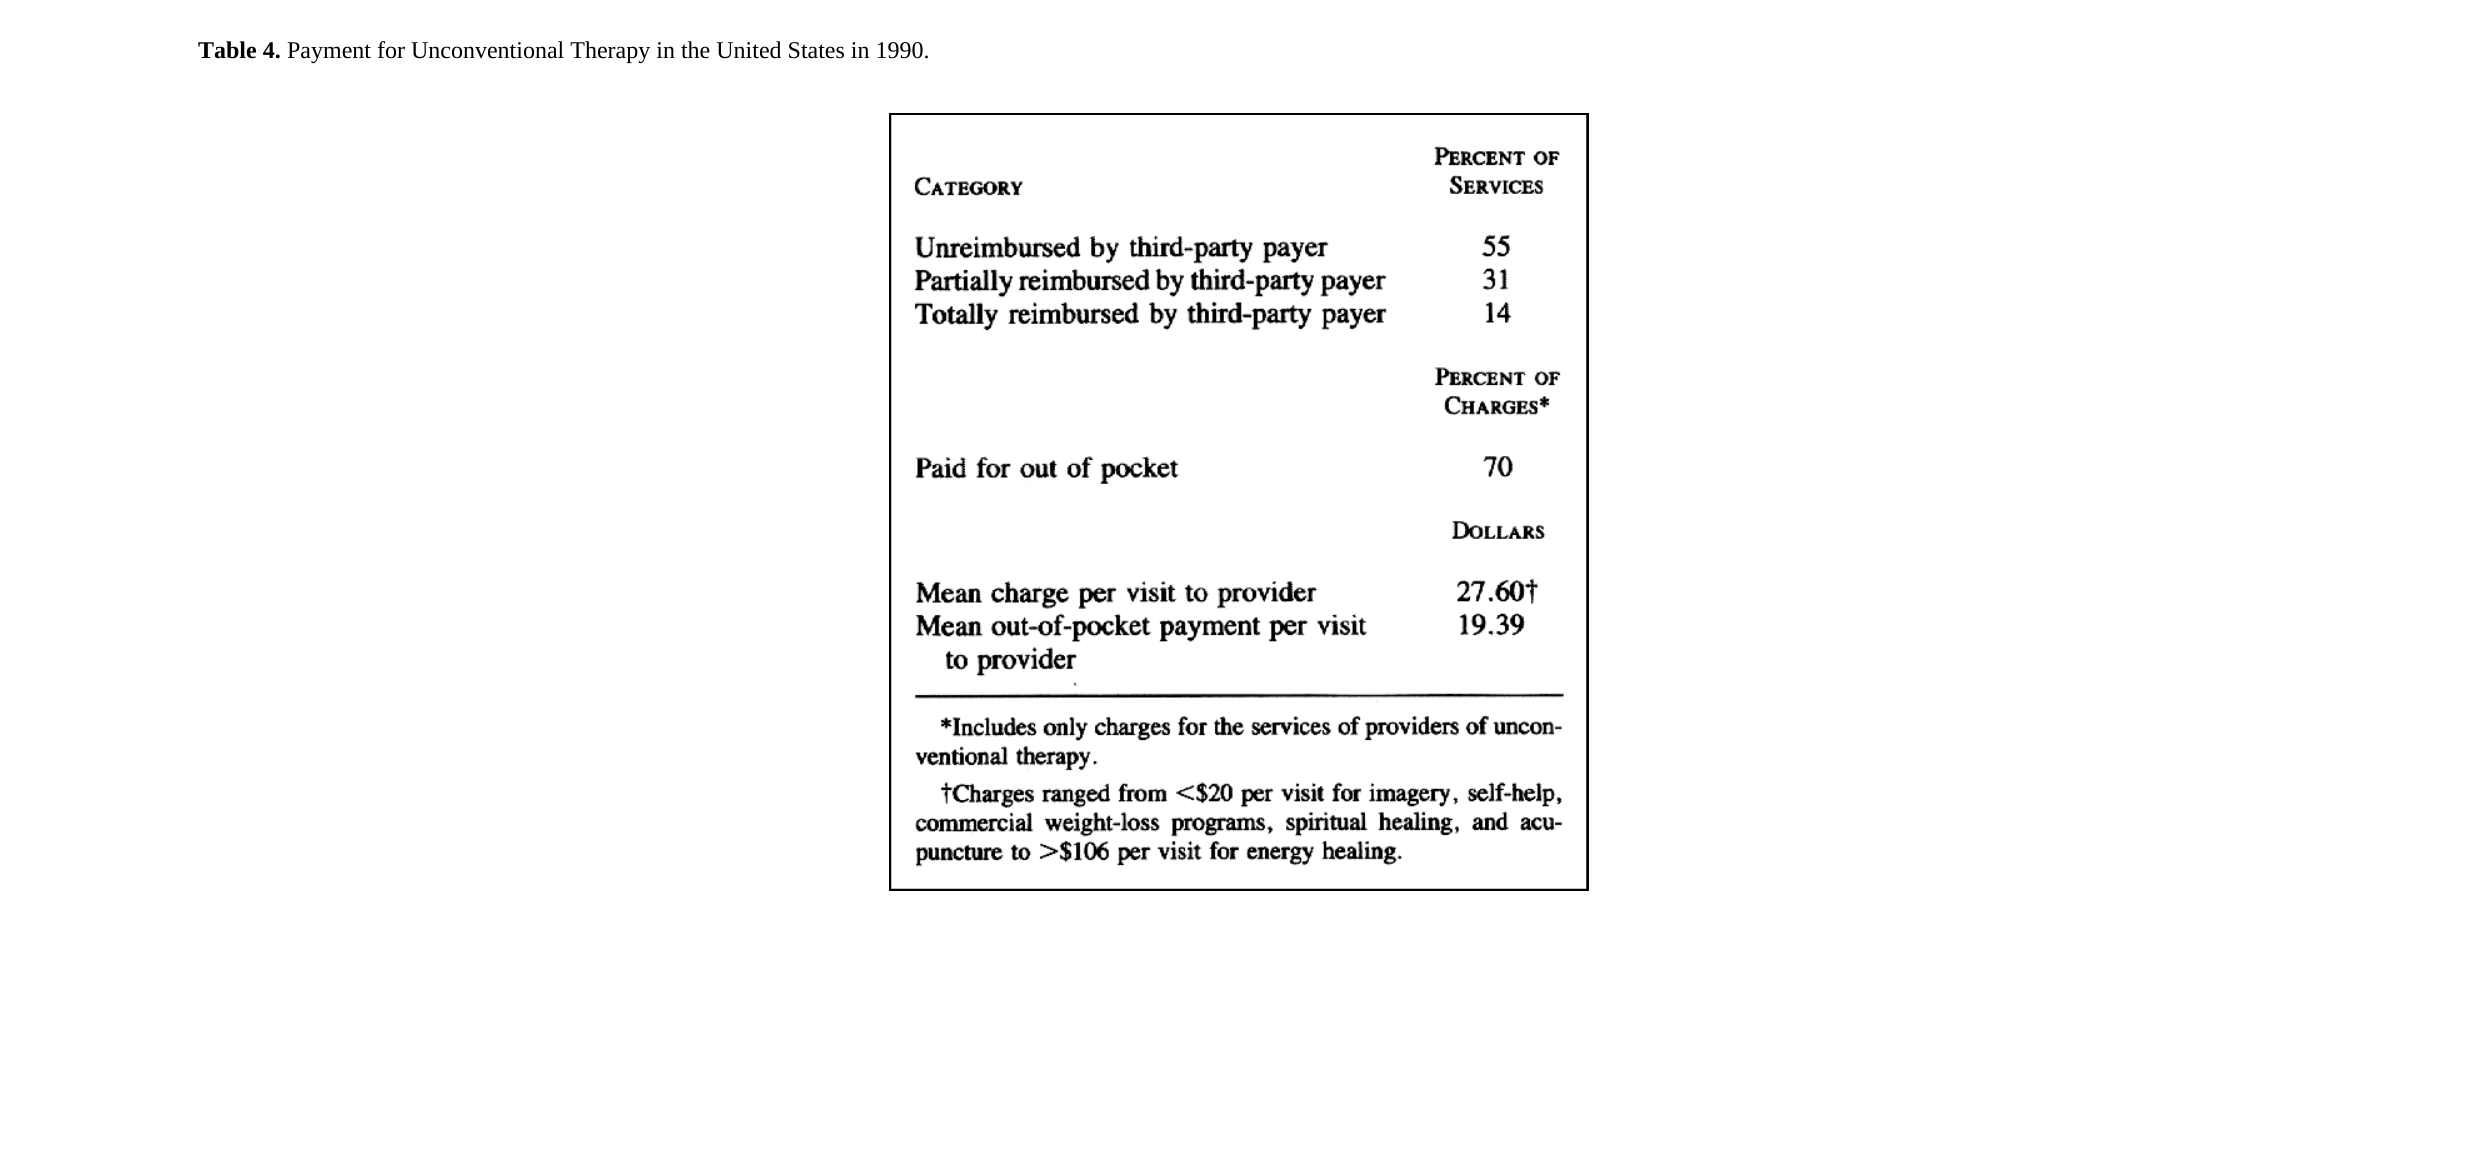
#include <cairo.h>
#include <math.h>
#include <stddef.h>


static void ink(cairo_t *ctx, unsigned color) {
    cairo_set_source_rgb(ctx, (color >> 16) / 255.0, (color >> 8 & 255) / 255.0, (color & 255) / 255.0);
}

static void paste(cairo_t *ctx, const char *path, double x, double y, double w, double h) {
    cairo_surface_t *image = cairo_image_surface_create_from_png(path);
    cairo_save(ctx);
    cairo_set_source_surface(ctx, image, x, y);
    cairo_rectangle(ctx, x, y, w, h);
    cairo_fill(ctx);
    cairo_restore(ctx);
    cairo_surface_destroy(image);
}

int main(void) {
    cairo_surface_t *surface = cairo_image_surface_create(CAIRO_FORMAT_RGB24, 2476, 1168);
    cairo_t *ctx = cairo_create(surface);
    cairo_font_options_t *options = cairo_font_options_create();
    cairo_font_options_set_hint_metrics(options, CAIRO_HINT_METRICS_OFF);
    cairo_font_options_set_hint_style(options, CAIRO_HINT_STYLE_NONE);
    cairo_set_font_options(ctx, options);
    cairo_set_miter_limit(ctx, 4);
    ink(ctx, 0xFFFFFF);
    cairo_paint(ctx);
    cairo_select_font_face(ctx, "Liberation Serif", CAIRO_FONT_SLANT_NORMAL, CAIRO_FONT_WEIGHT_BOLD);
    cairo_set_font_size(ctx, 24);
    ink(ctx, 0x000000);
    cairo_move_to(ctx, 198, 58);
    cairo_show_text(ctx, "Table 4.");
    cairo_select_font_face(ctx, "Liberation Serif", CAIRO_FONT_SLANT_NORMAL, CAIRO_FONT_WEIGHT_NORMAL);
    cairo_move_to(ctx, 287, 58);
    cairo_show_text(ctx, "Payment for Unconventional Therapy in the United States in 1990.");
    cairo_rectangle(ctx, 890.5, 114.5, 697, 775);
    cairo_set_line_width(ctx, 3);
    cairo_stroke(ctx);
    paste(ctx, "media/1.png", 891, 115, 696, 774);
    cairo_surface_write_to_png(surface, "image.png");
    cairo_font_options_destroy(options);
    cairo_destroy(ctx);
    cairo_surface_destroy(surface);
    return 0;
}
